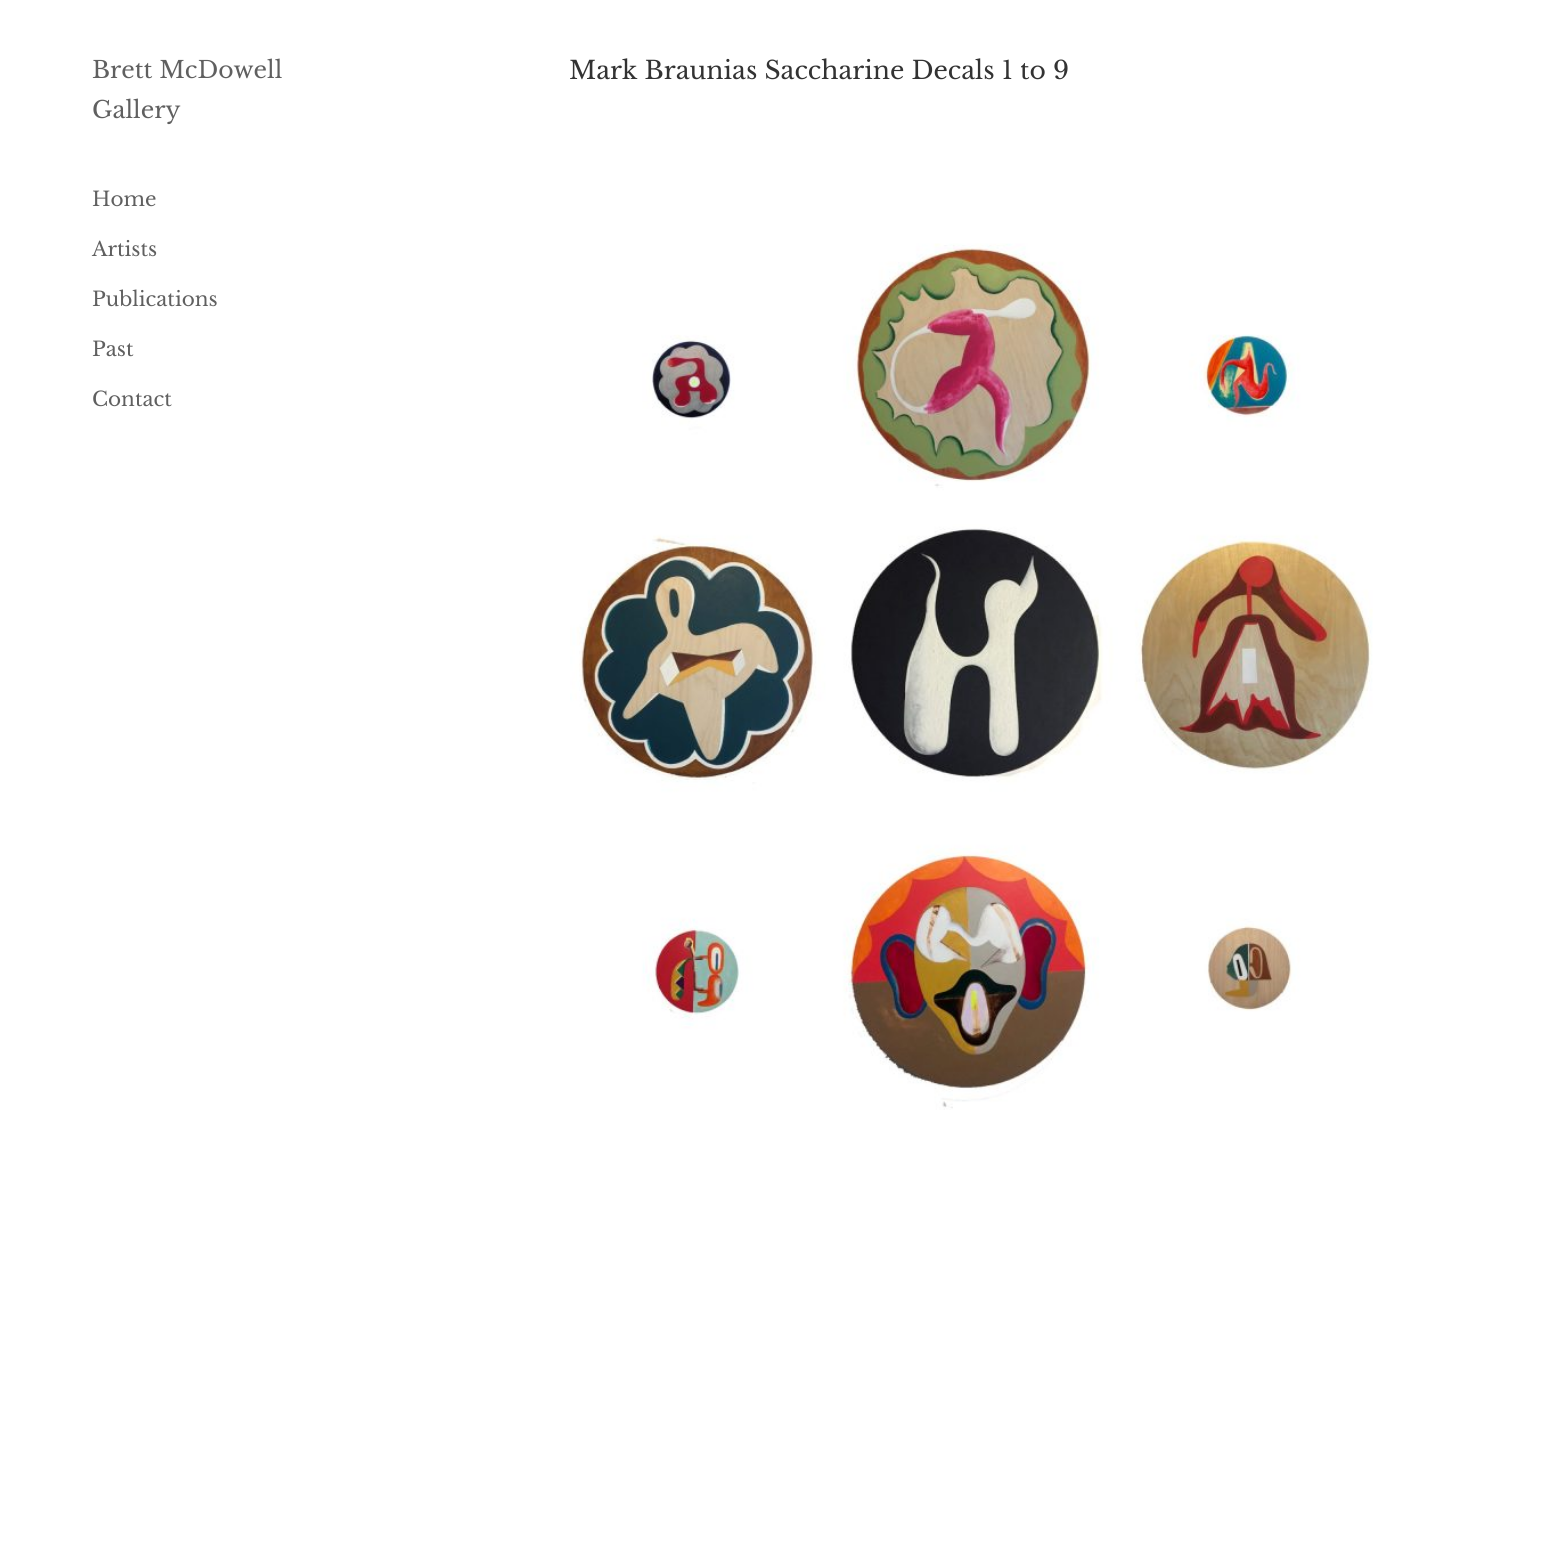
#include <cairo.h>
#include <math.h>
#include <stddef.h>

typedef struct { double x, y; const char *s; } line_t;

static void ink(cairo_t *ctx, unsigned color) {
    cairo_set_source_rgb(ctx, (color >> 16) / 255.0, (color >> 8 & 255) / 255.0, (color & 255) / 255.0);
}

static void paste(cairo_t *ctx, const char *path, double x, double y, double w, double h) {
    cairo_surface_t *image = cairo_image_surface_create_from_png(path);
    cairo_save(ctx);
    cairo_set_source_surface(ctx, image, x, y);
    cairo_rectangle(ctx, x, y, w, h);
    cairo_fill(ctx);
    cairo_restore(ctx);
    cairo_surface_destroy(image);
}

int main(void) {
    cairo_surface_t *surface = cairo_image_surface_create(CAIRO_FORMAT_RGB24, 1561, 1542);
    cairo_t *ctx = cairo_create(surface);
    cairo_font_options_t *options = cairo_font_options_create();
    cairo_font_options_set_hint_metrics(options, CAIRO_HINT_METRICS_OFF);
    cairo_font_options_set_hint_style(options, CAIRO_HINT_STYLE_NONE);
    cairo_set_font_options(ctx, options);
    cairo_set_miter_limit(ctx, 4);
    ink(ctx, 0xFFFFFF);
    cairo_paint(ctx);
    cairo_select_font_face(ctx, "Libre Baskerville", CAIRO_FONT_SLANT_NORMAL, CAIRO_FONT_WEIGHT_NORMAL);
    cairo_set_font_size(ctx, 23.5);
    ink(ctx, 0x606060);
    cairo_move_to(ctx, 92, 78);
    cairo_show_text(ctx, "Brett McDowell");
    cairo_move_to(ctx, 92, 118);
    cairo_show_text(ctx, "Gallery");
    cairo_set_font_size(ctx, 20);
    {
        static const line_t items[] = {
            {92, 206, "Home"},
            {92, 256, "Artists"},
            {92, 306, "Publications"},
            {92, 356, "Past"},
            {92, 406, "Contact"},
        };
        for (size_t i = 0; i < sizeof items / sizeof *items; i++) {
            cairo_move_to(ctx, items[i].x, items[i].y);
            cairo_show_text(ctx, items[i].s);
        }
    }
    cairo_set_font_size(ctx, 25);
    ink(ctx, 0x333333);
    cairo_move_to(ctx, 569, 79);
    cairo_show_text(ctx, "Mark Braunias Saccharine Decals 1 to 9");
    paste(ctx, "media/1.png", 570, 243, 803, 867);
    cairo_surface_write_to_png(surface, "image.png");
    cairo_font_options_destroy(options);
    cairo_destroy(ctx);
    cairo_surface_destroy(surface);
    return 0;
}
